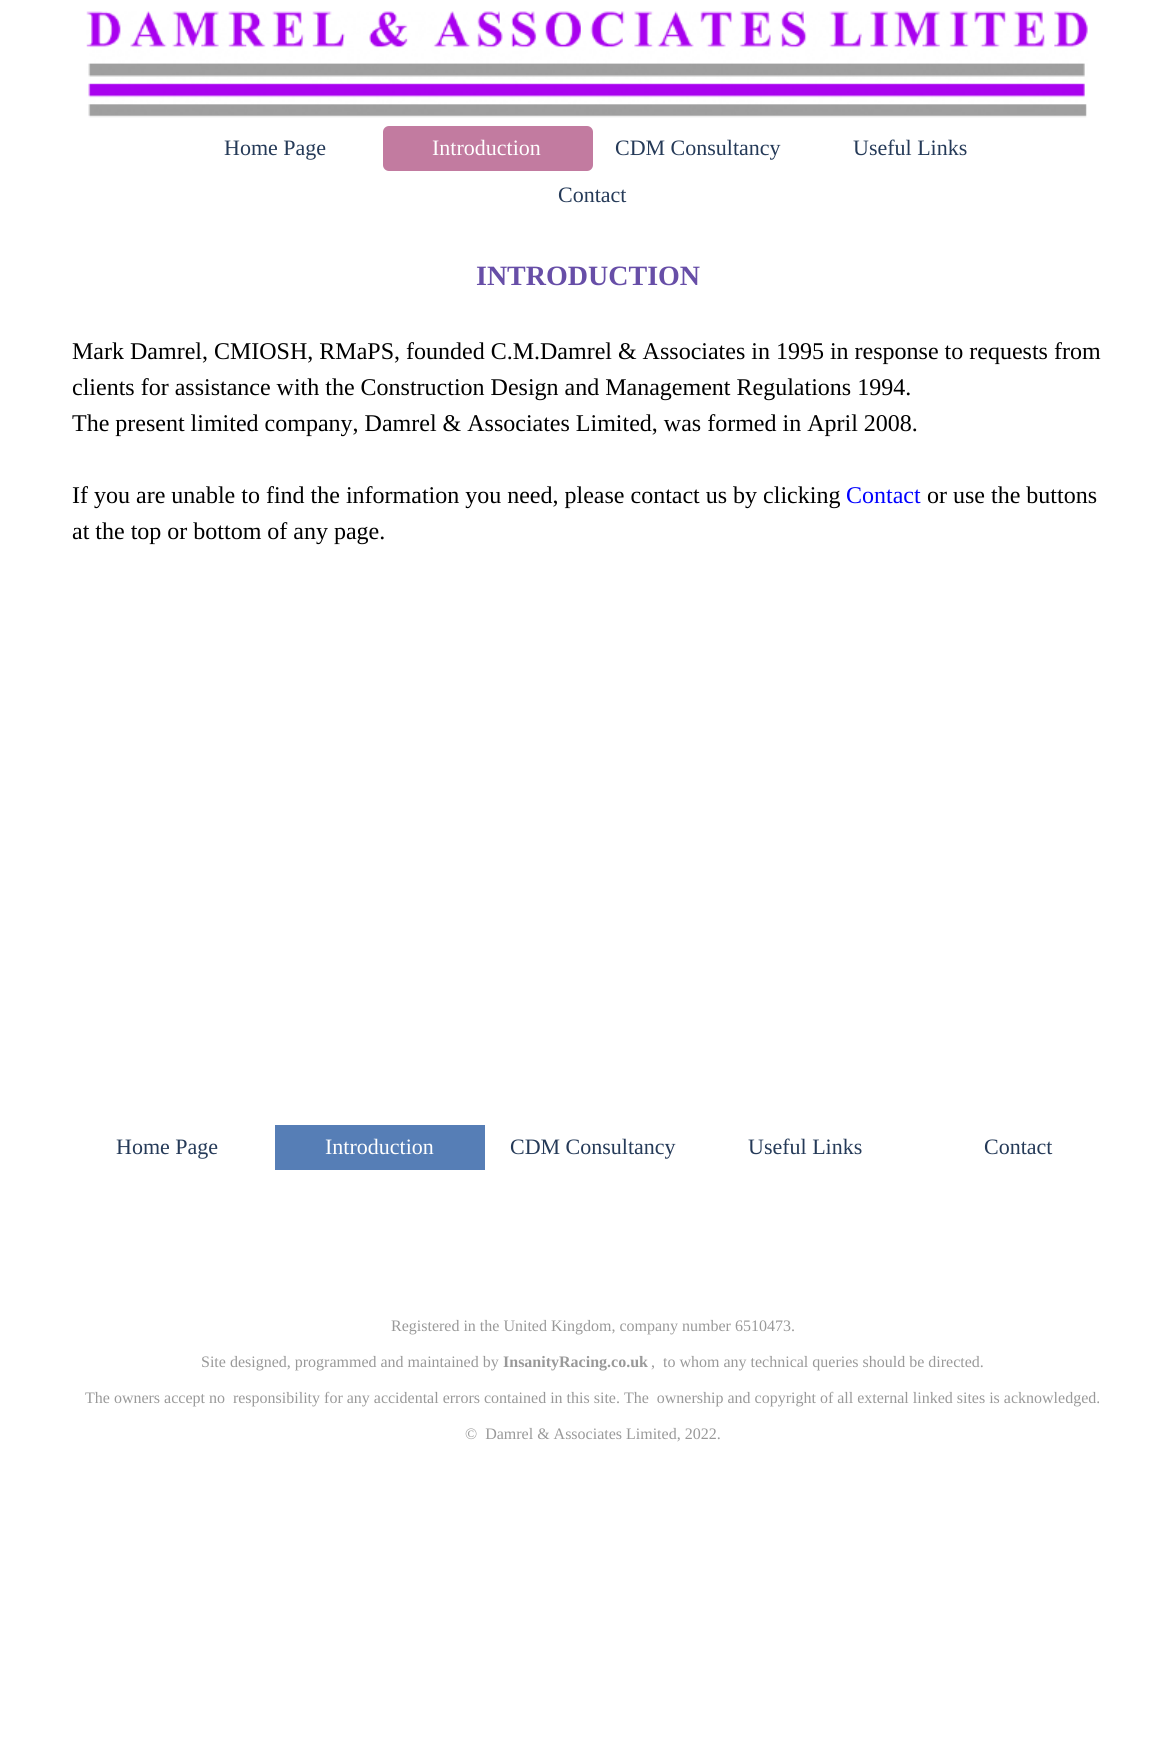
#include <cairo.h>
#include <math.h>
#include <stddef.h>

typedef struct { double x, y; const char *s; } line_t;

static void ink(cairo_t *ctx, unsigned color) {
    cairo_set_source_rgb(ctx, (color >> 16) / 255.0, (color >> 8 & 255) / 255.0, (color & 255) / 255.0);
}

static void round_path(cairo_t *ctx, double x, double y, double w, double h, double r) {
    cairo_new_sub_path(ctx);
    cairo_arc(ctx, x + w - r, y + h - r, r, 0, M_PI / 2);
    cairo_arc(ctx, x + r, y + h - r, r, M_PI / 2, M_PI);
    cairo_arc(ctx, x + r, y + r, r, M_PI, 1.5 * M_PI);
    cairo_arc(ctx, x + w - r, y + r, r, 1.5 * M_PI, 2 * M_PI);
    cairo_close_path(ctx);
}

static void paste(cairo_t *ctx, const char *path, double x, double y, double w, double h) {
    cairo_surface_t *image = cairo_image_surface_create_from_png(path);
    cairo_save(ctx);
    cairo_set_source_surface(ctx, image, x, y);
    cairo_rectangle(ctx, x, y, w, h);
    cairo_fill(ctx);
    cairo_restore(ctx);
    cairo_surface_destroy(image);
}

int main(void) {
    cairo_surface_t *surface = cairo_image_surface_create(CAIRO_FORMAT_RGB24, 1176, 1751);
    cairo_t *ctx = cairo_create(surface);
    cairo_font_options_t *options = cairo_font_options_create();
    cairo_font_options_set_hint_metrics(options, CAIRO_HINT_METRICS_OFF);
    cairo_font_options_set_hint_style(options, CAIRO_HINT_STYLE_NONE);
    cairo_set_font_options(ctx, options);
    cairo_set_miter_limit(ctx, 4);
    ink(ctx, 0xFFFFFF);
    cairo_paint(ctx);
    paste(ctx, "media/1.png", 86, 11, 1002, 107);
    cairo_select_font_face(ctx, "Liberation Serif", CAIRO_FONT_SLANT_NORMAL, CAIRO_FONT_WEIGHT_NORMAL);
    cairo_set_font_size(ctx, 22);
    ink(ctx, 0x253A58);
    cairo_move_to(ctx, 224, 155);
    cairo_show_text(ctx, "Home Page");
    ink(ctx, 0xC27BA0);
    round_path(ctx, 383, 126, 210, 45, 6);
    cairo_fill(ctx);
    ink(ctx, 0xFFFFFF);
    cairo_move_to(ctx, 432, 155);
    cairo_show_text(ctx, "Introduction");
    ink(ctx, 0x253A58);
    {
        static const line_t items[] = {
            {615, 155, "CDM Consultancy"},
            {853, 155, "Useful Links"},
            {558, 202, "Contact"},
        };
        for (size_t i = 0; i < sizeof items / sizeof *items; i++) {
            cairo_move_to(ctx, items[i].x, items[i].y);
            cairo_show_text(ctx, items[i].s);
        }
    }
    cairo_select_font_face(ctx, "Liberation Serif", CAIRO_FONT_SLANT_NORMAL, CAIRO_FONT_WEIGHT_BOLD);
    cairo_set_font_size(ctx, 28);
    ink(ctx, 0x674EA7);
    cairo_move_to(ctx, 476, 285);
    cairo_show_text(ctx, "INTRODUCTION");
    cairo_select_font_face(ctx, "Liberation Serif", CAIRO_FONT_SLANT_NORMAL, CAIRO_FONT_WEIGHT_NORMAL);
    cairo_set_font_size(ctx, 24);
    ink(ctx, 0x000000);
    {
        static const line_t items[] = {
            {72, 359, "Mark Damrel, CMIOSH, RMaPS, founded C.M.Damrel & Associates in 1995 in response to requests from"},
            {72, 395, "clients for assistance with the Construction Design and Management Regulations 1994."},
            {72, 431, "The present limited company, Damrel & Associates Limited, was formed in April 2008."},
            {72, 503, "If you are unable to find the information you need, please contact us by clicking"},
        };
        for (size_t i = 0; i < sizeof items / sizeof *items; i++) {
            cairo_move_to(ctx, items[i].x, items[i].y);
            cairo_show_text(ctx, items[i].s);
        }
    }
    ink(ctx, 0x0000FF);
    cairo_move_to(ctx, 846, 503);
    cairo_show_text(ctx, "Contact");
    ink(ctx, 0x000000);
    cairo_move_to(ctx, 927, 503);
    cairo_show_text(ctx, "or use the buttons");
    cairo_move_to(ctx, 72, 539);
    cairo_show_text(ctx, "at the top or bottom of any page.");
    cairo_set_font_size(ctx, 22);
    ink(ctx, 0x253A58);
    cairo_move_to(ctx, 116, 1154);
    cairo_show_text(ctx, "Home Page");
    ink(ctx, 0x567EB6);
    cairo_rectangle(ctx, 275, 1125, 210, 45);
    cairo_fill(ctx);
    ink(ctx, 0xFFFFFF);
    cairo_move_to(ctx, 325, 1154);
    cairo_show_text(ctx, "Introduction");
    ink(ctx, 0x253A58);
    {
        static const line_t items[] = {
            {510, 1154, "CDM Consultancy"},
            {748, 1154, "Useful Links"},
            {984, 1154, "Contact"},
        };
        for (size_t i = 0; i < sizeof items / sizeof *items; i++) {
            cairo_move_to(ctx, items[i].x, items[i].y);
            cairo_show_text(ctx, items[i].s);
        }
    }
    cairo_set_font_size(ctx, 16);
    ink(ctx, 0x999999);
    cairo_move_to(ctx, 391, 1331);
    cairo_show_text(ctx, "Registered in the United Kingdom, company number 6510473.");
    cairo_move_to(ctx, 201, 1367);
    cairo_show_text(ctx, "Site designed, programmed and maintained by");
    cairo_select_font_face(ctx, "Liberation Serif", CAIRO_FONT_SLANT_NORMAL, CAIRO_FONT_WEIGHT_BOLD);
    cairo_move_to(ctx, 503, 1367);
    cairo_show_text(ctx, "InsanityRacing.co.uk");
    cairo_select_font_face(ctx, "Liberation Serif", CAIRO_FONT_SLANT_NORMAL, CAIRO_FONT_WEIGHT_NORMAL);
    {
        static const line_t items[] = {
            {651, 1367, ",  to whom any technical queries should be directed."},
            {85, 1403, "The owners accept no  responsibility for any accidental errors contained in this site. The  ownership and copyright of all external linked sites is acknowledged."},
            {465, 1439, "©  Damrel & Associates Limited, 2022."},
        };
        for (size_t i = 0; i < sizeof items / sizeof *items; i++) {
            cairo_move_to(ctx, items[i].x, items[i].y);
            cairo_show_text(ctx, items[i].s);
        }
    }
    cairo_surface_write_to_png(surface, "image.png");
    cairo_font_options_destroy(options);
    cairo_destroy(ctx);
    cairo_surface_destroy(surface);
    return 0;
}
